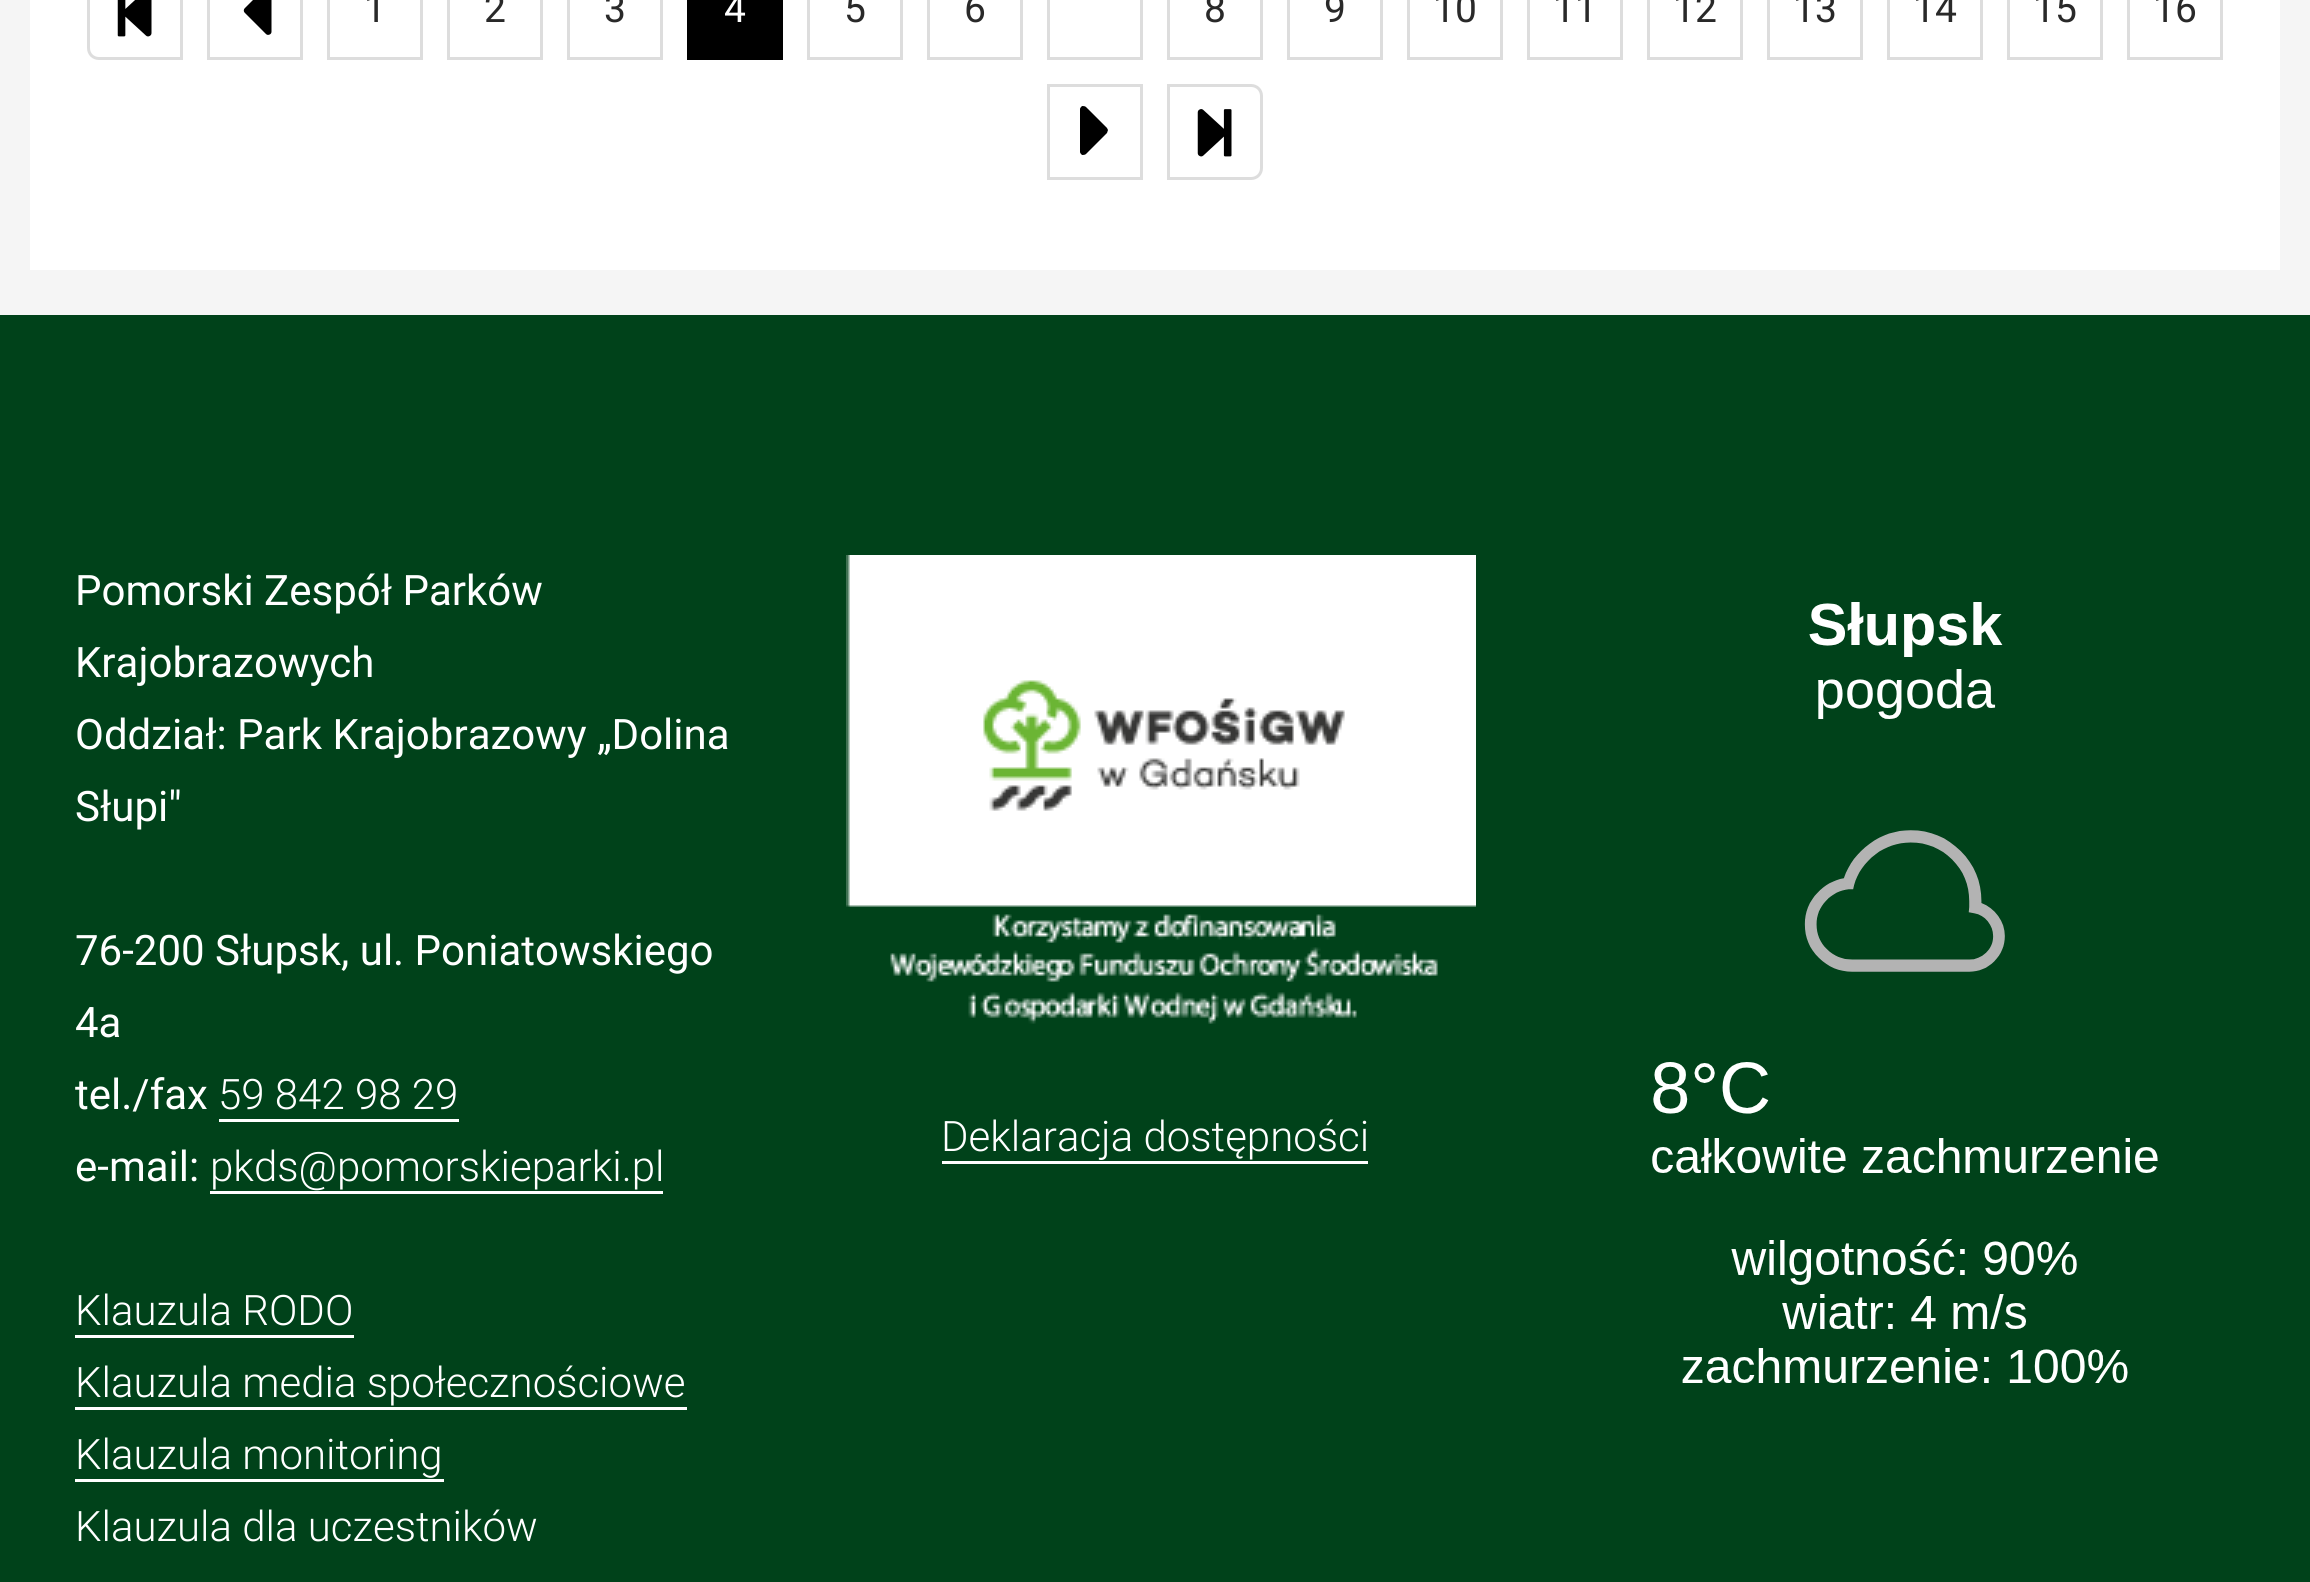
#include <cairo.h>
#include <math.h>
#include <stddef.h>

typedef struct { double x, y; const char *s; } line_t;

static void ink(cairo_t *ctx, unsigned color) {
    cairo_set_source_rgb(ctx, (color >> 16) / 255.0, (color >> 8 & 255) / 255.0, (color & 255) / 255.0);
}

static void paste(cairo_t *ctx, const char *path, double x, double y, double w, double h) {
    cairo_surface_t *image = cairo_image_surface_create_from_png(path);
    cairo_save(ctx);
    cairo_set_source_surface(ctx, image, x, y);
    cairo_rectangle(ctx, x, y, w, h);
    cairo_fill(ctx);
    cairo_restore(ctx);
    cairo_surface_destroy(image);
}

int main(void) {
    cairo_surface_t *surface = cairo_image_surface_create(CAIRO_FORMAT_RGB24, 2310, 1582);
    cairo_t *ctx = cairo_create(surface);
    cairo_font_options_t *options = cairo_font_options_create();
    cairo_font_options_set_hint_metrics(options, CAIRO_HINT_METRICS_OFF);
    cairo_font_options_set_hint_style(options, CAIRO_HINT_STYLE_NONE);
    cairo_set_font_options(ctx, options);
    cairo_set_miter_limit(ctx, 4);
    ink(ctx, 0xF5F5F5);
    cairo_paint(ctx);
    ink(ctx, 0xFFFFFF);
    cairo_rectangle(ctx, 30, 0, 2250, 270);
    cairo_fill(ctx);
    cairo_new_path(ctx);
    cairo_move_to(ctx, 99, -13.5);
    cairo_line_to(ctx, 181.5, -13.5);
    cairo_line_to(ctx, 181.5, 58.5);
    cairo_line_to(ctx, 99, 58.5);
    cairo_curve_to(ctx, 93, 58.5, 88.5, 54, 88.5, 48);
    cairo_line_to(ctx, 88.5, -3);
    cairo_curve_to(ctx, 88.5, -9, 93, -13.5, 99, -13.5);
    cairo_close_path(ctx);
    ink(ctx, 0xDDDDDD);
    cairo_set_line_width(ctx, 3);
    cairo_stroke(ctx);
    paste(ctx, "media/1.png", 117, 0, 35, 37);
    cairo_rectangle(ctx, 208.5, -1.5, 93, 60);
    cairo_stroke(ctx);
    paste(ctx, "media/2.png", 243, 0, 29, 35);
    cairo_rectangle(ctx, 328.5, -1.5, 93, 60);
    cairo_stroke(ctx);
    cairo_select_font_face(ctx, "Roboto", CAIRO_FONT_SLANT_NORMAL, CAIRO_FONT_WEIGHT_NORMAL);
    cairo_set_font_size(ctx, 39);
    ink(ctx, 0x292929);
    cairo_move_to(ctx, 364, 22);
    cairo_show_text(ctx, "1");
    cairo_rectangle(ctx, 448.5, -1.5, 93, 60);
    ink(ctx, 0xDDDDDD);
    cairo_stroke(ctx);
    ink(ctx, 0x292929);
    cairo_move_to(ctx, 484, 22);
    cairo_show_text(ctx, "2");
    cairo_rectangle(ctx, 568.5, -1.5, 93, 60);
    ink(ctx, 0xDDDDDD);
    cairo_stroke(ctx);
    ink(ctx, 0x292929);
    cairo_move_to(ctx, 604, 22);
    cairo_show_text(ctx, "3");
    ink(ctx, 0x000000);
    cairo_rectangle(ctx, 687, 0, 96, 60);
    cairo_fill(ctx);
    ink(ctx, 0xFFFFFF);
    cairo_move_to(ctx, 724, 22);
    cairo_show_text(ctx, "4");
    cairo_rectangle(ctx, 808.5, -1.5, 93, 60);
    ink(ctx, 0xDDDDDD);
    cairo_stroke(ctx);
    ink(ctx, 0x292929);
    cairo_move_to(ctx, 844, 22);
    cairo_show_text(ctx, "5");
    cairo_rectangle(ctx, 928.5, -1.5, 93, 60);
    ink(ctx, 0xDDDDDD);
    cairo_stroke(ctx);
    ink(ctx, 0x292929);
    cairo_move_to(ctx, 964, 22);
    cairo_show_text(ctx, "6");
    cairo_rectangle(ctx, 1048.5, -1.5, 93, 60);
    ink(ctx, 0xDDDDDD);
    cairo_stroke(ctx);
    cairo_rectangle(ctx, 1168.5, -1.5, 93, 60);
    cairo_stroke(ctx);
    ink(ctx, 0x292929);
    cairo_move_to(ctx, 1204, 22);
    cairo_show_text(ctx, "8");
    cairo_rectangle(ctx, 1288.5, -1.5, 93, 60);
    ink(ctx, 0xDDDDDD);
    cairo_stroke(ctx);
    ink(ctx, 0x292929);
    cairo_move_to(ctx, 1324, 22);
    cairo_show_text(ctx, "9");
    cairo_rectangle(ctx, 1408.5, -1.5, 93, 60);
    ink(ctx, 0xDDDDDD);
    cairo_stroke(ctx);
    ink(ctx, 0x292929);
    cairo_move_to(ctx, 1433, 22);
    cairo_show_text(ctx, "10");
    cairo_rectangle(ctx, 1528.5, -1.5, 93, 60);
    ink(ctx, 0xDDDDDD);
    cairo_stroke(ctx);
    ink(ctx, 0x292929);
    cairo_move_to(ctx, 1553, 22);
    cairo_show_text(ctx, "11");
    cairo_rectangle(ctx, 1648.5, -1.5, 93, 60);
    ink(ctx, 0xDDDDDD);
    cairo_stroke(ctx);
    ink(ctx, 0x292929);
    cairo_move_to(ctx, 1673, 22);
    cairo_show_text(ctx, "12");
    cairo_rectangle(ctx, 1768.5, -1.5, 93, 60);
    ink(ctx, 0xDDDDDD);
    cairo_stroke(ctx);
    ink(ctx, 0x292929);
    cairo_move_to(ctx, 1793, 22);
    cairo_show_text(ctx, "13");
    cairo_rectangle(ctx, 1888.5, -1.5, 93, 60);
    ink(ctx, 0xDDDDDD);
    cairo_stroke(ctx);
    ink(ctx, 0x292929);
    cairo_move_to(ctx, 1913, 22);
    cairo_show_text(ctx, "14");
    cairo_rectangle(ctx, 2008.5, -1.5, 93, 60);
    ink(ctx, 0xDDDDDD);
    cairo_stroke(ctx);
    ink(ctx, 0x292929);
    cairo_move_to(ctx, 2033, 22);
    cairo_show_text(ctx, "15");
    cairo_rectangle(ctx, 2128.5, -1.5, 93, 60);
    ink(ctx, 0xDDDDDD);
    cairo_stroke(ctx);
    ink(ctx, 0x292929);
    cairo_move_to(ctx, 2153, 22);
    cairo_show_text(ctx, "16");
    cairo_rectangle(ctx, 1048.5, 85.5, 93, 93);
    ink(ctx, 0xDDDDDD);
    cairo_stroke(ctx);
    ink(ctx, 0x000000);
    cairo_new_path(ctx);
    cairo_move_to(ctx, 1080, 152);
    cairo_line_to(ctx, 1080, 109);
    cairo_curve_to(ctx, 1080, 108, 1081, 107, 1082, 106);
    cairo_curve_to(ctx, 1083, 106, 1085, 106, 1086, 107);
    cairo_line_to(ctx, 1107, 128);
    cairo_line_to(ctx, 1108, 130);
    cairo_line_to(ctx, 1107, 133);
    cairo_line_to(ctx, 1086, 154);
    cairo_curve_to(ctx, 1085, 155, 1083, 155, 1082, 155);
    cairo_curve_to(ctx, 1081, 154, 1080, 153, 1080, 152);
    cairo_close_path(ctx);
    cairo_fill(ctx);
    cairo_new_path(ctx);
    cairo_move_to(ctx, 1168.5, 85.5);
    cairo_line_to(ctx, 1251, 85.5);
    cairo_curve_to(ctx, 1257, 85.5, 1261.5, 90, 1261.5, 96);
    cairo_line_to(ctx, 1261.5, 168);
    cairo_curve_to(ctx, 1261.5, 174, 1257, 178.5, 1251, 178.5);
    cairo_line_to(ctx, 1168.5, 178.5);
    cairo_close_path(ctx);
    ink(ctx, 0xDDDDDD);
    cairo_stroke(ctx);
    paste(ctx, "media/3.png", 1197, 109, 35, 48);
    ink(ctx, 0x00421A);
    cairo_rectangle(ctx, 0, 315, 2310, 1267);
    cairo_fill(ctx);
    cairo_set_font_size(ctx, 42);
    ink(ctx, 0xFFFFFF);
    {
        static const line_t items[] = {
            {75, 605, "Pomorski Zespół Parków"},
            {75, 677, "Krajobrazowych"},
            {75, 749, "Oddział: Park Krajobrazowy „Dolina"},
            {75, 821, "Słupi\""},
            {75, 965, "76-200 Słupsk, ul. Poniatowskiego"},
            {75, 1037, "4a"},
            {75, 1109, "tel./fax"},
        };
        for (size_t i = 0; i < sizeof items / sizeof *items; i++) {
            cairo_move_to(ctx, items[i].x, items[i].y);
            cairo_show_text(ctx, items[i].s);
        }
    }
    cairo_select_font_face(ctx, "Roboto Light", CAIRO_FONT_SLANT_NORMAL, CAIRO_FONT_WEIGHT_NORMAL);
    cairo_move_to(ctx, 218, 1109);
    cairo_show_text(ctx, "59 842 98 29");
    cairo_rectangle(ctx, 219, 1119, 240, 3);
    cairo_fill(ctx);
    cairo_select_font_face(ctx, "Roboto", CAIRO_FONT_SLANT_NORMAL, CAIRO_FONT_WEIGHT_NORMAL);
    cairo_move_to(ctx, 75, 1181);
    cairo_show_text(ctx, "e-mail:");
    cairo_select_font_face(ctx, "Roboto Light", CAIRO_FONT_SLANT_NORMAL, CAIRO_FONT_WEIGHT_NORMAL);
    cairo_move_to(ctx, 210, 1181);
    cairo_show_text(ctx, "pkds@pomorskieparki.pl");
    cairo_rectangle(ctx, 210, 1191, 453, 3);
    cairo_fill(ctx);
    cairo_move_to(ctx, 75, 1325);
    cairo_show_text(ctx, "Klauzula RODO");
    cairo_rectangle(ctx, 75, 1335, 279, 3);
    cairo_fill(ctx);
    cairo_move_to(ctx, 75, 1397);
    cairo_show_text(ctx, "Klauzula media społecznościowe");
    cairo_rectangle(ctx, 75, 1407, 612, 3);
    cairo_fill(ctx);
    cairo_move_to(ctx, 75, 1469);
    cairo_show_text(ctx, "Klauzula monitoring");
    cairo_rectangle(ctx, 75, 1479, 369, 3);
    cairo_fill(ctx);
    cairo_move_to(ctx, 75, 1541);
    cairo_show_text(ctx, "Klauzula dla uczestników");
    paste(ctx, "media/4.png", 846, 555, 630, 469);
    cairo_move_to(ctx, 941, 1151);
    cairo_show_text(ctx, "Deklaracja dostępności");
    cairo_rectangle(ctx, 942, 1161, 426, 3);
    cairo_fill(ctx);
    paste(ctx, "media/5.png", 1652, 602, 506, 781);
    cairo_surface_write_to_png(surface, "image.png");
    cairo_font_options_destroy(options);
    cairo_destroy(ctx);
    cairo_surface_destroy(surface);
    return 0;
}
